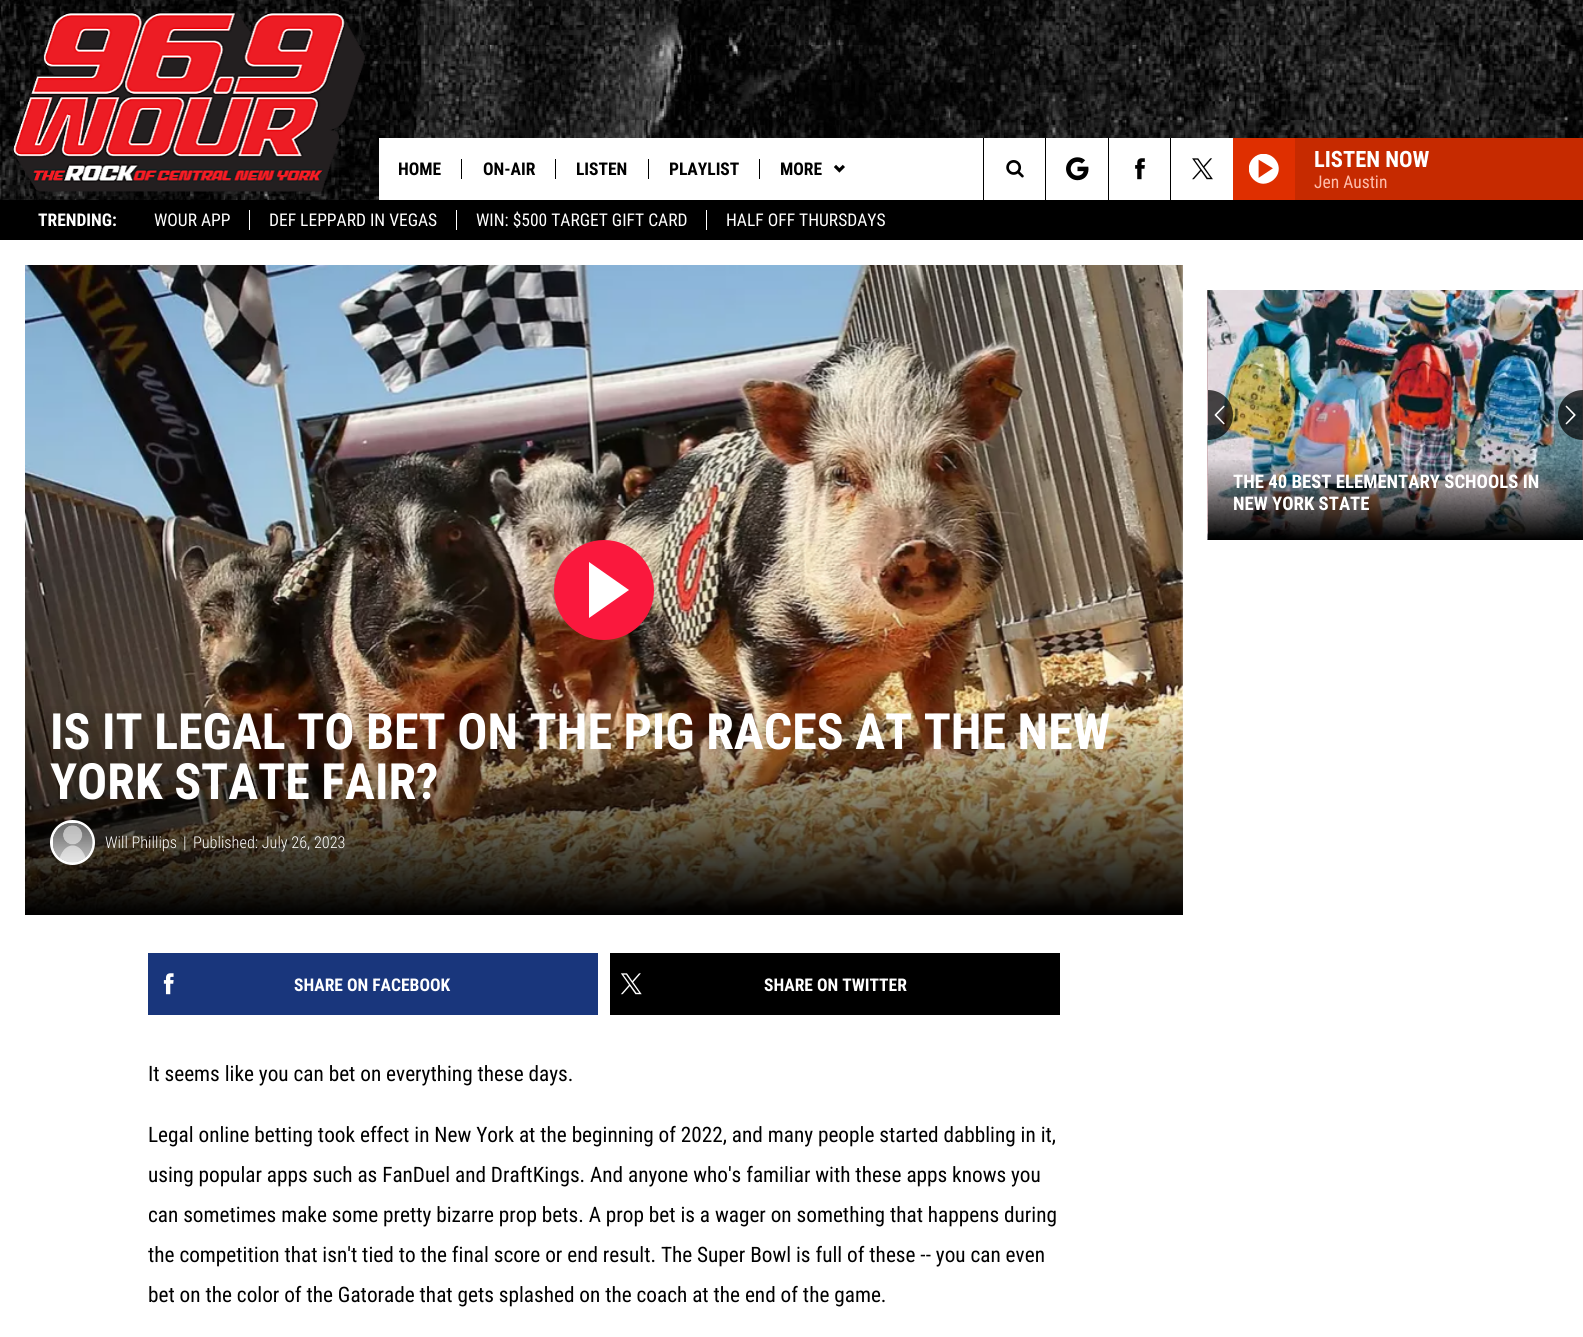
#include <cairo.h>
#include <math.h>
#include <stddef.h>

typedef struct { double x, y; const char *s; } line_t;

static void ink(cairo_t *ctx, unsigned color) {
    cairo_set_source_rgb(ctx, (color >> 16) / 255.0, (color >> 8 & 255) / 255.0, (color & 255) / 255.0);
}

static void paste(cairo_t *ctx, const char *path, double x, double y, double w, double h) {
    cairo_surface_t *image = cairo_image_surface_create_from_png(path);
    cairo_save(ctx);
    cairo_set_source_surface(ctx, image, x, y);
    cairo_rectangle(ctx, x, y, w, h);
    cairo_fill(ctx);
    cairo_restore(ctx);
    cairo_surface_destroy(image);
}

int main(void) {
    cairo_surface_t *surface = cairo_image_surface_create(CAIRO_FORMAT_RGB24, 1583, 1337);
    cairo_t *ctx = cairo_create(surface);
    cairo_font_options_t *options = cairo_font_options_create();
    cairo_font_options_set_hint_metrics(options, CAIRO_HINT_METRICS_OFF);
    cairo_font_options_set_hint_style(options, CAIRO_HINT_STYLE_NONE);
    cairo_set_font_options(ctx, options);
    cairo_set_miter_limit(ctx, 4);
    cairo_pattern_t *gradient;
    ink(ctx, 0xFFFFFF);
    cairo_paint(ctx);
    paste(ctx, "media/1.png", 0, 0, 1583, 200);
    paste(ctx, "media/2.png", 12, 12, 353, 180);
    ink(ctx, 0xFFFFFF);
    cairo_rectangle(ctx, 379, 138, 854, 62);
    cairo_fill(ctx);
    cairo_select_font_face(ctx, "Roboto Condensed", CAIRO_FONT_SLANT_NORMAL, CAIRO_FONT_WEIGHT_BOLD);
    cairo_set_font_size(ctx, 17.5);
    ink(ctx, 0x000000);
    cairo_move_to(ctx, 398, 175);
    cairo_show_text(ctx, "HOME");
    cairo_rectangle(ctx, 461, 159, 1, 20);
    cairo_fill(ctx);
    cairo_move_to(ctx, 483, 175);
    cairo_show_text(ctx, "ON-AIR");
    cairo_rectangle(ctx, 555, 159, 1, 20);
    cairo_fill(ctx);
    cairo_move_to(ctx, 576, 175);
    cairo_show_text(ctx, "LISTEN");
    cairo_rectangle(ctx, 648, 159, 1, 20);
    cairo_fill(ctx);
    cairo_move_to(ctx, 669, 175);
    cairo_show_text(ctx, "PLAYLIST");
    cairo_rectangle(ctx, 759, 159, 1, 20);
    cairo_fill(ctx);
    cairo_move_to(ctx, 780, 175);
    cairo_show_text(ctx, "MORE");
    paste(ctx, "media/3.png", 834, 164, 11, 9);
    cairo_rectangle(ctx, 983, 138, 1, 62);
    cairo_fill(ctx);
    paste(ctx, "media/4.png", 1006, 160, 18, 18);
    cairo_rectangle(ctx, 1045, 138, 1, 62);
    cairo_fill(ctx);
    paste(ctx, "media/5.png", 1066, 157, 23, 24);
    cairo_rectangle(ctx, 1108, 138, 1, 62);
    cairo_fill(ctx);
    paste(ctx, "media/6.png", 1135, 158, 10, 22);
    cairo_rectangle(ctx, 1170, 138, 1, 62);
    cairo_fill(ctx);
    paste(ctx, "media/7.png", 1192, 158, 21, 22);
    ink(ctx, 0xDF2F00);
    cairo_rectangle(ctx, 1233, 138, 62, 62);
    cairo_fill(ctx);
    paste(ctx, "media/8.png", 1249, 154, 30, 30);
    ink(ctx, 0xC62A00);
    cairo_rectangle(ctx, 1295, 138, 288, 62);
    cairo_fill(ctx);
    cairo_set_font_size(ctx, 22.5);
    ink(ctx, 0xFFFFFF);
    cairo_move_to(ctx, 1314, 167);
    cairo_show_text(ctx, "LISTEN NOW");
    cairo_select_font_face(ctx, "Roboto Condensed", CAIRO_FONT_SLANT_NORMAL, CAIRO_FONT_WEIGHT_NORMAL);
    cairo_set_font_size(ctx, 17.5);
    ink(ctx, 0xFFBDAC);
    cairo_move_to(ctx, 1314, 188);
    cairo_show_text(ctx, "Jen Austin");
    ink(ctx, 0x000000);
    cairo_rectangle(ctx, 0, 200, 1583, 40);
    cairo_fill(ctx);
    cairo_select_font_face(ctx, "Roboto Condensed", CAIRO_FONT_SLANT_NORMAL, CAIRO_FONT_WEIGHT_BOLD);
    ink(ctx, 0xFFFFFF);
    cairo_move_to(ctx, 38, 226);
    cairo_show_text(ctx, "TRENDING:");
    cairo_select_font_face(ctx, "Roboto Condensed", CAIRO_FONT_SLANT_NORMAL, CAIRO_FONT_WEIGHT_NORMAL);
    cairo_move_to(ctx, 154, 226);
    cairo_show_text(ctx, "WOUR APP");
    cairo_move_to(ctx, 269, 226);
    cairo_show_text(ctx, "DEF LEPPARD IN VEGAS");
    cairo_rectangle(ctx, 249, 210, 1, 20);
    cairo_fill(ctx);
    cairo_move_to(ctx, 476, 226);
    cairo_show_text(ctx, "WIN: $500 TARGET GIFT CARD");
    cairo_rectangle(ctx, 456, 210, 1, 20);
    cairo_fill(ctx);
    cairo_move_to(ctx, 726, 226);
    cairo_show_text(ctx, "HALF OFF THURSDAYS");
    cairo_rectangle(ctx, 706, 210, 1, 20);
    cairo_fill(ctx);
    paste(ctx, "media/9.png", 1207, 290, 376, 250);
    paste(ctx, "media/12.png", 1207, 290, 376, 250);
    cairo_set_source_rgba(ctx, 0, 0, 0, 0.7);
    cairo_new_path(ctx);
    cairo_move_to(ctx, 1208, 390);
    cairo_curve_to(ctx, 1222, 390, 1233, 401, 1233, 415);
    cairo_curve_to(ctx, 1233, 429, 1222, 440, 1208, 440);
    cairo_close_path(ctx);
    cairo_fill(ctx);
    paste(ctx, "media/10.png", 1214, 405, 11, 20);
    cairo_new_path(ctx);
    cairo_move_to(ctx, 1583, 390);
    cairo_line_to(ctx, 1583, 440);
    cairo_curve_to(ctx, 1569, 440, 1558, 429, 1558, 415);
    cairo_curve_to(ctx, 1558, 401, 1569, 390, 1583, 390);
    cairo_close_path(ctx);
    cairo_fill(ctx);
    paste(ctx, "media/11.png", 1565, 405, 11, 20);
    gradient = cairo_pattern_create_linear(1395, 458, 1395, 540);
    cairo_pattern_add_color_stop_rgba(gradient, 0, 0, 0, 0, 0);
    cairo_pattern_add_color_stop_rgba(gradient, 1, 0, 0, 0, 1);
    cairo_set_source(ctx, gradient);
    cairo_pattern_destroy(gradient);
    cairo_rectangle(ctx, 1208, 460, 375, 80);
    cairo_fill(ctx);
    cairo_select_font_face(ctx, "Roboto Condensed", CAIRO_FONT_SLANT_NORMAL, CAIRO_FONT_WEIGHT_BOLD);
    cairo_set_font_size(ctx, 18.75);
    ink(ctx, 0xFFFFFF);
    cairo_move_to(ctx, 1233, 488);
    cairo_show_text(ctx, "THE 40 BEST ELEMENTARY SCHOOLS IN");
    cairo_move_to(ctx, 1233, 510);
    cairo_show_text(ctx, "NEW YORK STATE");
    paste(ctx, "media/13.png", 25, 265, 1158, 649);
    ink(ctx, 0xFA183D);
    cairo_arc(ctx, 604, 590, 50, 0, 2 * M_PI);
    cairo_fill(ctx);
    ink(ctx, 0xFFFFFF);
    cairo_new_path(ctx);
    cairo_move_to(ctx, 589, 618);
    cairo_line_to(ctx, 589, 562);
    cairo_line_to(ctx, 629, 590);
    cairo_close_path(ctx);
    cairo_fill(ctx);
    gradient = cairo_pattern_create_linear(604, 701, 604, 915);
    cairo_pattern_add_color_stop_rgba(gradient, 0, 0, 0, 0, 0);
    cairo_pattern_add_color_stop_rgba(gradient, 1, 0, 0, 0, 1);
    cairo_set_source(ctx, gradient);
    cairo_pattern_destroy(gradient);
    cairo_rectangle(ctx, 25, 706, 1158, 209);
    cairo_fill(ctx);
    cairo_set_font_size(ctx, 50);
    ink(ctx, 0xFFFFFF);
    cairo_move_to(ctx, 50, 749);
    cairo_show_text(ctx, "IS IT LEGAL TO BET ON THE PIG RACES AT THE NEW");
    cairo_move_to(ctx, 50, 799);
    cairo_show_text(ctx, "YORK STATE FAIR?");
    cairo_new_path(ctx);
    cairo_arc(ctx, 72.5, 842.5, 21, 0, 2 * M_PI);
    cairo_set_line_width(ctx, 3);
    cairo_stroke(ctx);
    paste(ctx, "media/14.png", 53, 823, 40, 40);
    cairo_select_font_face(ctx, "Roboto Condensed Light", CAIRO_FONT_SLANT_NORMAL, CAIRO_FONT_WEIGHT_NORMAL);
    cairo_set_font_size(ctx, 16.25);
    {
        static const line_t items[] = {
            {105, 848, "Will Phillips"},
            {183, 848, "|"},
            {193, 848, "Published: July 26, 2023"},
        };
        for (size_t i = 0; i < sizeof items / sizeof *items; i++) {
            cairo_move_to(ctx, items[i].x, items[i].y);
            cairo_show_text(ctx, items[i].s);
        }
    }
    ink(ctx, 0x19367C);
    cairo_rectangle(ctx, 148, 953, 450, 62);
    cairo_fill(ctx);
    paste(ctx, "media/15.png", 163, 973, 11, 22);
    cairo_select_font_face(ctx, "Roboto Condensed", CAIRO_FONT_SLANT_NORMAL, CAIRO_FONT_WEIGHT_BOLD);
    cairo_set_font_size(ctx, 17.5);
    ink(ctx, 0xFFFFFF);
    cairo_move_to(ctx, 294, 991);
    cairo_show_text(ctx, "SHARE ON FACEBOOK");
    ink(ctx, 0x000000);
    cairo_rectangle(ctx, 610, 953, 450, 62);
    cairo_fill(ctx);
    paste(ctx, "media/16.png", 620, 973, 22, 22);
    ink(ctx, 0xFFFFFF);
    cairo_move_to(ctx, 764, 991);
    cairo_show_text(ctx, "SHARE ON TWITTER");
    cairo_select_font_face(ctx, "Roboto Condensed", CAIRO_FONT_SLANT_NORMAL, CAIRO_FONT_WEIGHT_NORMAL);
    cairo_set_font_size(ctx, 21.25);
    ink(ctx, 0x000000);
    {
        static const line_t items[] = {
            {148, 1081, "It seems like you can bet on everything these days."},
            {148, 1142, "Legal online betting took effect in New York at the beginning of 2022, and many people started dabbling in it,"},
            {148, 1182, "using popular apps such as FanDuel and DraftKings. And anyone who's familiar with these apps knows you"},
            {148, 1222, "can sometimes make some pretty bizarre prop bets. A prop bet is a wager on something that happens during"},
            {148, 1262, "the competition that isn't tied to the final score or end result. The Super Bowl is full of these -- you can even"},
            {148, 1302, "bet on the color of the Gatorade that gets splashed on the coach at the end of the game."},
        };
        for (size_t i = 0; i < sizeof items / sizeof *items; i++) {
            cairo_move_to(ctx, items[i].x, items[i].y);
            cairo_show_text(ctx, items[i].s);
        }
    }
    cairo_surface_write_to_png(surface, "image.png");
    cairo_font_options_destroy(options);
    cairo_destroy(ctx);
    cairo_surface_destroy(surface);
    return 0;
}
